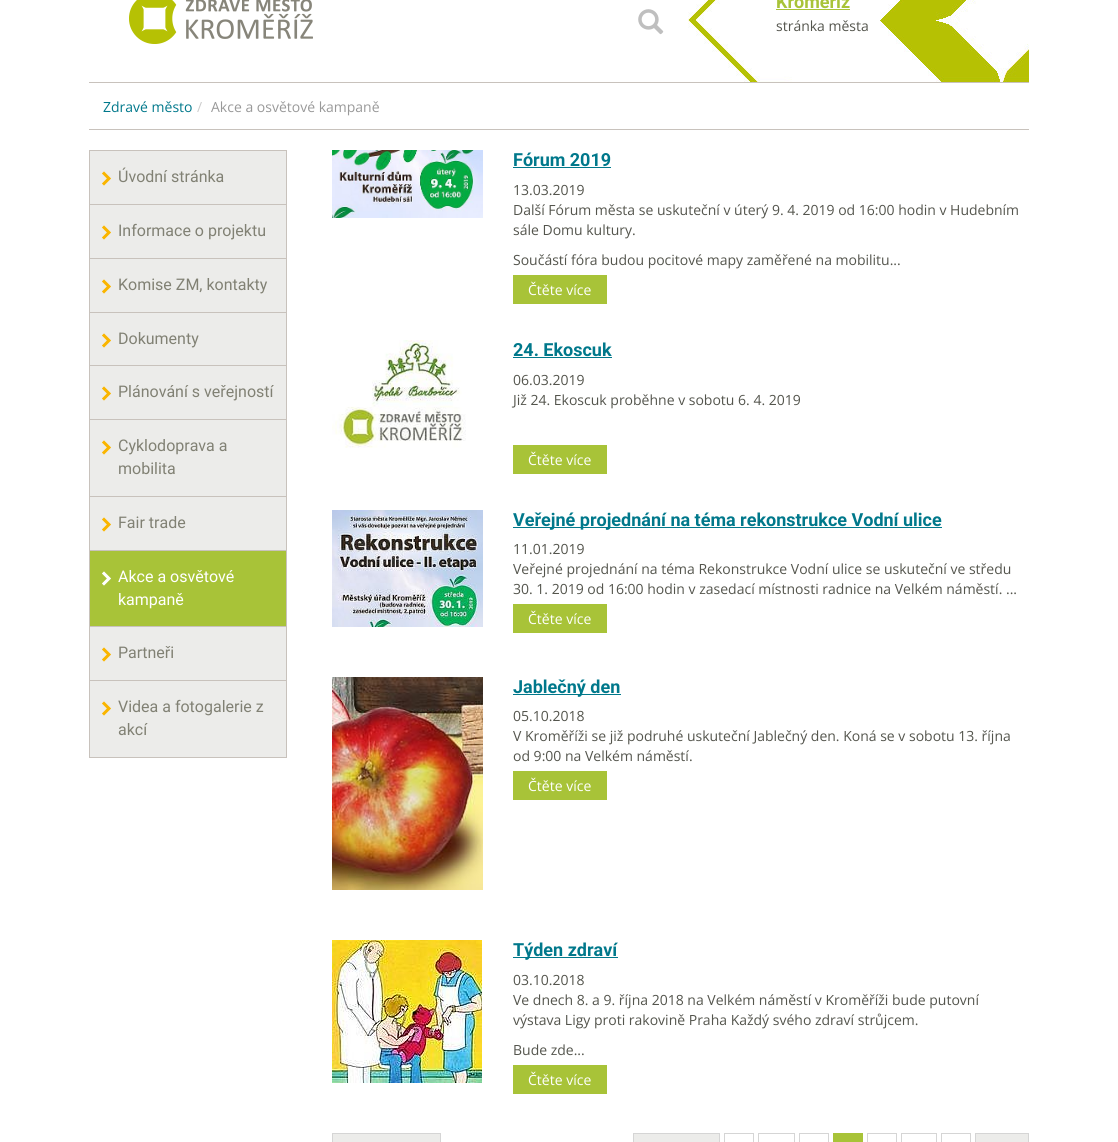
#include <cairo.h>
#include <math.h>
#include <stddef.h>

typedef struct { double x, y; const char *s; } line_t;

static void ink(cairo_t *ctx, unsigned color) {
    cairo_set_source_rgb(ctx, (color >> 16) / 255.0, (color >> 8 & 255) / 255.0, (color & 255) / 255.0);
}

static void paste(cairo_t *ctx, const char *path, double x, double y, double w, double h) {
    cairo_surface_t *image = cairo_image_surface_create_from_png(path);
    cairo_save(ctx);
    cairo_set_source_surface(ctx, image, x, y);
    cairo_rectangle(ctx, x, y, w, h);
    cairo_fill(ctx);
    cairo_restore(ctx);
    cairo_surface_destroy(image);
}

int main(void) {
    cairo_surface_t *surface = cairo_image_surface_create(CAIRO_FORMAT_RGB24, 1118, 1142);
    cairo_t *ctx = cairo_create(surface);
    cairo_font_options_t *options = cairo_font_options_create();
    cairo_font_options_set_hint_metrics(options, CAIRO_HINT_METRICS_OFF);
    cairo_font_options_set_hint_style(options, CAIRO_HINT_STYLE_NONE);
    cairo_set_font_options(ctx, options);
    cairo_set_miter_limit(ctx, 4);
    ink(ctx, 0xFFFFFF);
    cairo_paint(ctx);
    paste(ctx, "media/1.png", 688, 0, 341, 82);
    paste(ctx, "media/2.png", 129, 0, 184, 44);
    paste(ctx, "media/3.png", 638, 9, 26, 26);
    cairo_select_font_face(ctx, "Roboto", CAIRO_FONT_SLANT_NORMAL, CAIRO_FONT_WEIGHT_BOLD);
    cairo_set_font_size(ctx, 18);
    ink(ctx, 0xA8C338);
    cairo_move_to(ctx, 776, 8);
    cairo_show_text(ctx, "Kroměříž");
    cairo_rectangle(ctx, 776, 9, 74, 1);
    cairo_fill(ctx);
    cairo_select_font_face(ctx, "Open Sans", CAIRO_FONT_SLANT_NORMAL, CAIRO_FONT_WEIGHT_NORMAL);
    cairo_set_font_size(ctx, 14);
    ink(ctx, 0x54554D);
    cairo_move_to(ctx, 776, 31);
    cairo_show_text(ctx, "stránka města");
    ink(ctx, 0xC8C2BC);
    cairo_rectangle(ctx, 89, 82, 940, 1);
    cairo_fill(ctx);
    cairo_rectangle(ctx, 89, 129, 940, 1);
    cairo_fill(ctx);
    ink(ctx, 0x00788B);
    cairo_move_to(ctx, 103, 112);
    cairo_show_text(ctx, "Zdravé město");
    ink(ctx, 0xCCCCCC);
    cairo_move_to(ctx, 197, 112);
    cairo_show_text(ctx, "/");
    ink(ctx, 0x999999);
    cairo_move_to(ctx, 211, 112);
    cairo_show_text(ctx, "Akce a osvětové kampaně");
    ink(ctx, 0xECECEA);
    cairo_rectangle(ctx, 90, 151, 196, 53);
    cairo_fill(ctx);
    paste(ctx, "media/4.png", 102, 171, 9, 15);
    cairo_rectangle(ctx, 89.5, 150.5, 197, 54);
    ink(ctx, 0xC8C2BC);
    cairo_set_line_width(ctx, 1);
    cairo_stroke(ctx);
    cairo_select_font_face(ctx, "Roboto", CAIRO_FONT_SLANT_NORMAL, CAIRO_FONT_WEIGHT_NORMAL);
    cairo_set_font_size(ctx, 16);
    ink(ctx, 0x818174);
    cairo_move_to(ctx, 118, 182);
    cairo_show_text(ctx, "Úvodní stránka");
    ink(ctx, 0xECECEA);
    cairo_rectangle(ctx, 90, 205, 196, 53);
    cairo_fill(ctx);
    paste(ctx, "media/4.png", 102, 225, 9, 15);
    cairo_rectangle(ctx, 89.5, 204.5, 197, 54);
    ink(ctx, 0xC8C2BC);
    cairo_stroke(ctx);
    ink(ctx, 0x818174);
    cairo_move_to(ctx, 118, 236);
    cairo_show_text(ctx, "Informace o projektu");
    ink(ctx, 0xECECEA);
    cairo_rectangle(ctx, 90, 259, 196, 53);
    cairo_fill(ctx);
    paste(ctx, "media/4.png", 102, 279, 9, 15);
    cairo_rectangle(ctx, 89.5, 258.5, 197, 54);
    ink(ctx, 0xC8C2BC);
    cairo_stroke(ctx);
    ink(ctx, 0x818174);
    cairo_move_to(ctx, 118, 290);
    cairo_show_text(ctx, "Komise ZM, kontakty");
    ink(ctx, 0xECECEA);
    cairo_rectangle(ctx, 90, 313, 196, 52);
    cairo_fill(ctx);
    paste(ctx, "media/4.png", 102, 333, 9, 15);
    cairo_rectangle(ctx, 89.5, 312.5, 197, 53);
    ink(ctx, 0xC8C2BC);
    cairo_stroke(ctx);
    ink(ctx, 0x818174);
    cairo_move_to(ctx, 118, 344);
    cairo_show_text(ctx, "Dokumenty");
    ink(ctx, 0xECECEA);
    cairo_rectangle(ctx, 90, 366, 196, 53);
    cairo_fill(ctx);
    paste(ctx, "media/4.png", 102, 386, 9, 15);
    cairo_rectangle(ctx, 89.5, 365.5, 197, 54);
    ink(ctx, 0xC8C2BC);
    cairo_stroke(ctx);
    ink(ctx, 0x818174);
    cairo_move_to(ctx, 118, 397);
    cairo_show_text(ctx, "Plánování s veřejností");
    ink(ctx, 0xECECEA);
    cairo_rectangle(ctx, 90, 420, 196, 76);
    cairo_fill(ctx);
    paste(ctx, "media/4.png", 102, 440, 9, 15);
    cairo_rectangle(ctx, 89.5, 419.5, 197, 77);
    ink(ctx, 0xC8C2BC);
    cairo_stroke(ctx);
    ink(ctx, 0x818174);
    cairo_move_to(ctx, 118, 451);
    cairo_show_text(ctx, "Cyklodoprava a");
    cairo_move_to(ctx, 118, 474);
    cairo_show_text(ctx, "mobilita");
    ink(ctx, 0xECECEA);
    cairo_rectangle(ctx, 90, 497, 196, 53);
    cairo_fill(ctx);
    paste(ctx, "media/4.png", 102, 517, 9, 15);
    cairo_rectangle(ctx, 89.5, 496.5, 197, 54);
    ink(ctx, 0xC8C2BC);
    cairo_stroke(ctx);
    ink(ctx, 0x818174);
    cairo_move_to(ctx, 118, 528);
    cairo_show_text(ctx, "Fair trade");
    ink(ctx, 0xA8C338);
    cairo_rectangle(ctx, 90, 551, 196, 75);
    cairo_fill(ctx);
    paste(ctx, "media/5.png", 102, 571, 9, 15);
    cairo_rectangle(ctx, 89.5, 550.5, 197, 76);
    ink(ctx, 0xC8C2BC);
    cairo_stroke(ctx);
    ink(ctx, 0xFFFFFF);
    cairo_move_to(ctx, 118, 582);
    cairo_show_text(ctx, "Akce a osvětové");
    cairo_move_to(ctx, 118, 605);
    cairo_show_text(ctx, "kampaně");
    ink(ctx, 0xECECEA);
    cairo_rectangle(ctx, 90, 627, 196, 53);
    cairo_fill(ctx);
    paste(ctx, "media/4.png", 102, 647, 9, 15);
    cairo_rectangle(ctx, 89.5, 626.5, 197, 54);
    ink(ctx, 0xC8C2BC);
    cairo_stroke(ctx);
    ink(ctx, 0x818174);
    cairo_move_to(ctx, 118, 658);
    cairo_show_text(ctx, "Partneři");
    ink(ctx, 0xECECEA);
    cairo_rectangle(ctx, 90, 681, 196, 76);
    cairo_fill(ctx);
    paste(ctx, "media/4.png", 102, 701, 9, 15);
    cairo_rectangle(ctx, 89.5, 680.5, 197, 77);
    ink(ctx, 0xC8C2BC);
    cairo_stroke(ctx);
    ink(ctx, 0x818174);
    cairo_move_to(ctx, 118, 712);
    cairo_show_text(ctx, "Videa a fotogalerie z");
    cairo_move_to(ctx, 118, 735);
    cairo_show_text(ctx, "akcí");
    paste(ctx, "media/6.png", 332, 150, 151, 68);
    cairo_select_font_face(ctx, "Roboto", CAIRO_FONT_SLANT_NORMAL, CAIRO_FONT_WEIGHT_BOLD);
    cairo_set_font_size(ctx, 18);
    ink(ctx, 0x00788B);
    cairo_move_to(ctx, 513, 166);
    cairo_show_text(ctx, "Fórum 2019");
    cairo_rectangle(ctx, 513, 167, 98, 1);
    cairo_fill(ctx);
    cairo_select_font_face(ctx, "Open Sans", CAIRO_FONT_SLANT_NORMAL, CAIRO_FONT_WEIGHT_NORMAL);
    cairo_set_font_size(ctx, 14);
    ink(ctx, 0x54554D);
    {
        static const line_t items[] = {
            {513, 195, "13.03.2019"},
            {513, 215, "Další Fórum města se uskuteční v úterý 9. 4. 2019 od 16:00 hodin v Hudebním"},
            {513, 235, "sále Domu kultury."},
            {513, 265, "Součástí fóra budou pocitové mapy zaměřené na mobilitu..."},
        };
        for (size_t i = 0; i < sizeof items / sizeof *items; i++) {
            cairo_move_to(ctx, items[i].x, items[i].y);
            cairo_show_text(ctx, items[i].s);
        }
    }
    ink(ctx, 0xA8C338);
    cairo_rectangle(ctx, 513, 275, 94, 29);
    cairo_fill(ctx);
    ink(ctx, 0xFFFFFF);
    cairo_move_to(ctx, 528, 295);
    cairo_show_text(ctx, "Čtěte více");
    paste(ctx, "media/7.png", 332, 340, 134, 108);
    cairo_select_font_face(ctx, "Roboto", CAIRO_FONT_SLANT_NORMAL, CAIRO_FONT_WEIGHT_BOLD);
    cairo_set_font_size(ctx, 18);
    ink(ctx, 0x00788B);
    cairo_move_to(ctx, 513, 356);
    cairo_show_text(ctx, "24. Ekoscuk");
    cairo_rectangle(ctx, 513, 357, 99, 1);
    cairo_fill(ctx);
    cairo_select_font_face(ctx, "Open Sans", CAIRO_FONT_SLANT_NORMAL, CAIRO_FONT_WEIGHT_NORMAL);
    cairo_set_font_size(ctx, 14);
    ink(ctx, 0x54554D);
    cairo_move_to(ctx, 513, 385);
    cairo_show_text(ctx, "06.03.2019");
    cairo_move_to(ctx, 513, 405);
    cairo_show_text(ctx, "Již 24. Ekoscuk proběhne v sobotu 6. 4. 2019");
    ink(ctx, 0xA8C338);
    cairo_rectangle(ctx, 513, 445, 94, 29);
    cairo_fill(ctx);
    ink(ctx, 0xFFFFFF);
    cairo_move_to(ctx, 528, 465);
    cairo_show_text(ctx, "Čtěte více");
    paste(ctx, "media/8.png", 332, 510, 151, 117);
    ink(ctx, 0x00788B);
    cairo_rectangle(ctx, 513, 527, 429, 1);
    cairo_fill(ctx);
    cairo_select_font_face(ctx, "Roboto", CAIRO_FONT_SLANT_NORMAL, CAIRO_FONT_WEIGHT_BOLD);
    cairo_set_font_size(ctx, 18);
    cairo_move_to(ctx, 513, 526);
    cairo_show_text(ctx, "Veřejné projednání na téma rekonstrukce Vodní ulice");
    cairo_select_font_face(ctx, "Open Sans", CAIRO_FONT_SLANT_NORMAL, CAIRO_FONT_WEIGHT_NORMAL);
    cairo_set_font_size(ctx, 14);
    ink(ctx, 0x54554D);
    {
        static const line_t items[] = {
            {513, 554, "11.01.2019"},
            {513, 574, "Veřejné projednání na téma Rekonstrukce Vodní ulice se uskuteční ve středu"},
            {513, 594, "30. 1. 2019 od 16:00 hodin v zasedací místnosti radnice na Velkém náměstí. ..."},
        };
        for (size_t i = 0; i < sizeof items / sizeof *items; i++) {
            cairo_move_to(ctx, items[i].x, items[i].y);
            cairo_show_text(ctx, items[i].s);
        }
    }
    ink(ctx, 0xA8C338);
    cairo_rectangle(ctx, 513, 604, 94, 29);
    cairo_fill(ctx);
    ink(ctx, 0xFFFFFF);
    cairo_move_to(ctx, 528, 624);
    cairo_show_text(ctx, "Čtěte více");
    paste(ctx, "media/9.png", 332, 677, 151, 213);
    ink(ctx, 0x00788B);
    cairo_rectangle(ctx, 513, 694, 108, 1);
    cairo_fill(ctx);
    cairo_select_font_face(ctx, "Roboto", CAIRO_FONT_SLANT_NORMAL, CAIRO_FONT_WEIGHT_BOLD);
    cairo_set_font_size(ctx, 18);
    cairo_move_to(ctx, 513, 693);
    cairo_show_text(ctx, "Jablečný den");
    cairo_select_font_face(ctx, "Open Sans", CAIRO_FONT_SLANT_NORMAL, CAIRO_FONT_WEIGHT_NORMAL);
    cairo_set_font_size(ctx, 14);
    ink(ctx, 0x54554D);
    {
        static const line_t items[] = {
            {513, 721, "05.10.2018"},
            {513, 741, "V Kroměříži se již podruhé uskuteční Jablečný den. Koná se v sobotu 13. října"},
            {513, 761, "od 9:00 na Velkém náměstí."},
        };
        for (size_t i = 0; i < sizeof items / sizeof *items; i++) {
            cairo_move_to(ctx, items[i].x, items[i].y);
            cairo_show_text(ctx, items[i].s);
        }
    }
    ink(ctx, 0xA8C338);
    cairo_rectangle(ctx, 513, 771, 94, 29);
    cairo_fill(ctx);
    ink(ctx, 0xFFFFFF);
    cairo_move_to(ctx, 528, 791);
    cairo_show_text(ctx, "Čtěte více");
    paste(ctx, "media/10.png", 332, 940, 150, 143);
    ink(ctx, 0x00788B);
    cairo_rectangle(ctx, 513, 957, 105, 1);
    cairo_fill(ctx);
    cairo_select_font_face(ctx, "Roboto", CAIRO_FONT_SLANT_NORMAL, CAIRO_FONT_WEIGHT_BOLD);
    cairo_set_font_size(ctx, 18);
    cairo_move_to(ctx, 513, 956);
    cairo_show_text(ctx, "Týden zdraví");
    cairo_select_font_face(ctx, "Open Sans", CAIRO_FONT_SLANT_NORMAL, CAIRO_FONT_WEIGHT_NORMAL);
    cairo_set_font_size(ctx, 14);
    ink(ctx, 0x54554D);
    {
        static const line_t items[] = {
            {513, 985, "03.10.2018"},
            {513, 1005, "Ve dnech 8. a 9. října 2018 na Velkém náměstí v Kroměříži bude putovní"},
            {513, 1025, "výstava Ligy proti rakovině Praha Každý svého zdraví strůjcem."},
            {513, 1055, "Bude zde..."},
        };
        for (size_t i = 0; i < sizeof items / sizeof *items; i++) {
            cairo_move_to(ctx, items[i].x, items[i].y);
            cairo_show_text(ctx, items[i].s);
        }
    }
    ink(ctx, 0xA8C338);
    cairo_rectangle(ctx, 513, 1065, 94, 29);
    cairo_fill(ctx);
    ink(ctx, 0xFFFFFF);
    cairo_move_to(ctx, 528, 1085);
    cairo_show_text(ctx, "Čtěte více");
    ink(ctx, 0xECECEA);
    cairo_rectangle(ctx, 332.5, 1133.5, 108, 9);
    cairo_fill_preserve(ctx);
    ink(ctx, 0xD5D5D5);
    cairo_stroke(ctx);
    ink(ctx, 0xECECEA);
    cairo_rectangle(ctx, 633.5, 1133.5, 86, 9);
    cairo_fill_preserve(ctx);
    ink(ctx, 0xD5D5D5);
    cairo_stroke(ctx);
    cairo_rectangle(ctx, 724.5, 1133.5, 29, 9);
    cairo_stroke(ctx);
    cairo_rectangle(ctx, 758.5, 1133.5, 36, 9);
    cairo_stroke(ctx);
    cairo_rectangle(ctx, 799.5, 1133.5, 29, 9);
    cairo_stroke(ctx);
    ink(ctx, 0xA8C338);
    cairo_rectangle(ctx, 833, 1133, 30, 9);
    cairo_fill(ctx);
    cairo_rectangle(ctx, 867.5, 1133.5, 29, 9);
    ink(ctx, 0xD5D5D5);
    cairo_stroke(ctx);
    cairo_rectangle(ctx, 901.5, 1133.5, 35, 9);
    cairo_stroke(ctx);
    cairo_rectangle(ctx, 941.5, 1133.5, 29, 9);
    cairo_stroke(ctx);
    ink(ctx, 0xECECEA);
    cairo_rectangle(ctx, 975.5, 1133.5, 53, 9);
    cairo_fill_preserve(ctx);
    ink(ctx, 0xD5D5D5);
    cairo_stroke(ctx);
    cairo_surface_write_to_png(surface, "image.png");
    cairo_font_options_destroy(options);
    cairo_destroy(ctx);
    cairo_surface_destroy(surface);
    return 0;
}
